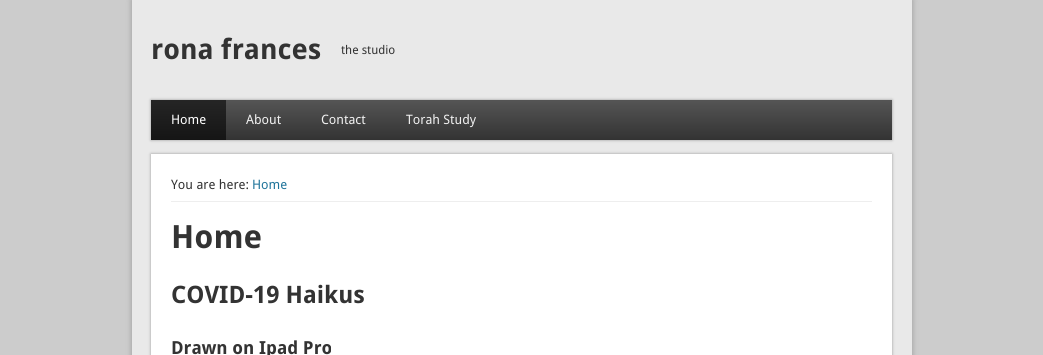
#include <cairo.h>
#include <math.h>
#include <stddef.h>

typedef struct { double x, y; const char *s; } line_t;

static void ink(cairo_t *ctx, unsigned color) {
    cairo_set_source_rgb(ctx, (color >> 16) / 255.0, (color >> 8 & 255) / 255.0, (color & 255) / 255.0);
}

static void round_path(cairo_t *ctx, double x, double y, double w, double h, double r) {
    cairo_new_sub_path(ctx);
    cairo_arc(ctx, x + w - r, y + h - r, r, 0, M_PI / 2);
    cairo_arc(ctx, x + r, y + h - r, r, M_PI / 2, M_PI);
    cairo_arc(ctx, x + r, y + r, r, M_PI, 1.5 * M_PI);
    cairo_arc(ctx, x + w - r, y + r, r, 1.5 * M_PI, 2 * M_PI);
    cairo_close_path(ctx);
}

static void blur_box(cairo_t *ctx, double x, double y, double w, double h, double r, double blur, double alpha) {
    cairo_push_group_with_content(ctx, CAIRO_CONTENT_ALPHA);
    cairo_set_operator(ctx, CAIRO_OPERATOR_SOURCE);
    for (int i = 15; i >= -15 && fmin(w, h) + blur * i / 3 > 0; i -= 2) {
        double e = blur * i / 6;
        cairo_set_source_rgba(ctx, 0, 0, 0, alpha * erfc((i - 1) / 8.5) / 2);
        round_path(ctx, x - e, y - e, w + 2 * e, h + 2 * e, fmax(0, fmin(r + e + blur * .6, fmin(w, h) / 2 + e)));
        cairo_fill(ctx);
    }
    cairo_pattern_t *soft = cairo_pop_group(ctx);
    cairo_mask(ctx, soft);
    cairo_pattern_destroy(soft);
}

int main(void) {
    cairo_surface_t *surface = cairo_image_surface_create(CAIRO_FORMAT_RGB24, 1043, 355);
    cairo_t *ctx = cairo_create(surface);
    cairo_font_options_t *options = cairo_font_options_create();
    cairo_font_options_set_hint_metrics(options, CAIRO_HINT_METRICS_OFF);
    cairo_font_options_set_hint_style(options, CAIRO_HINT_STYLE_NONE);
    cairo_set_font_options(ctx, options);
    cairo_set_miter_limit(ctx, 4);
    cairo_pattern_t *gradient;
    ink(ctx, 0xCCCCCC);
    cairo_paint(ctx);
    ink(ctx, 0x999999);
    blur_box(ctx, 132, 0, 780, 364, 0, 3, 1);
    ink(ctx, 0xE9E9E9);
    cairo_rectangle(ctx, 132, 0, 780, 355);
    cairo_fill(ctx);
    cairo_select_font_face(ctx, "Droid Sans", CAIRO_FONT_SLANT_NORMAL, CAIRO_FONT_WEIGHT_BOLD);
    cairo_set_font_size(ctx, 28);
    ink(ctx, 0x333333);
    cairo_move_to(ctx, 151, 59);
    cairo_show_text(ctx, "rona frances");
    cairo_select_font_face(ctx, "Droid Sans", CAIRO_FONT_SLANT_NORMAL, CAIRO_FONT_WEIGHT_NORMAL);
    cairo_set_font_size(ctx, 12);
    cairo_move_to(ctx, 341, 54);
    cairo_show_text(ctx, "the studio");
    ink(ctx, 0x999999);
    blur_box(ctx, 151, 100, 741, 40, 0, 1.5, 1);
    gradient = cairo_pattern_create_linear(522, 100, 522, 180);
    cairo_pattern_add_color_stop_rgba(gradient, 0, 0.333, 0.333, 0.333, 1);
    cairo_pattern_add_color_stop_rgba(gradient, 0.5, 0.2, 0.2, 0.2, 1);
    cairo_pattern_add_color_stop_rgba(gradient, 0.5, 0.333, 0.333, 0.333, 1);
    cairo_pattern_add_color_stop_rgba(gradient, 1, 0.2, 0.2, 0.2, 1);
    cairo_set_source(ctx, gradient);
    cairo_pattern_destroy(gradient);
    cairo_rectangle(ctx, 226, 100, 666, 40);
    cairo_fill(ctx);
    gradient = cairo_pattern_create_linear(189, 100, 189, 140);
    cairo_pattern_add_color_stop_rgba(gradient, 0, 0.145, 0.145, 0.145, 1);
    cairo_pattern_add_color_stop_rgba(gradient, 1, 0.082, 0.082, 0.082, 1);
    cairo_set_source(ctx, gradient);
    cairo_pattern_destroy(gradient);
    cairo_rectangle(ctx, 151, 100, 75, 40);
    cairo_fill(ctx);
    cairo_set_font_size(ctx, 13);
    ink(ctx, 0xFFFFFF);
    cairo_move_to(ctx, 171, 124);
    cairo_show_text(ctx, "Home");
    ink(ctx, 0xF0F0F0);
    {
        static const line_t items[] = {
            {246, 124, "About"},
            {321, 124, "Contact"},
            {406, 124, "Torah Study"},
        };
        for (size_t i = 0; i < sizeof items / sizeof *items; i++) {
            cairo_move_to(ctx, items[i].x, items[i].y);
            cairo_show_text(ctx, items[i].s);
        }
    }
    ink(ctx, 0x999999);
    blur_box(ctx, 151, 154, 741, 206, 0, 1.5, 1);
    ink(ctx, 0xFFFFFF);
    cairo_rectangle(ctx, 151, 154, 741, 201);
    cairo_fill(ctx);
    ink(ctx, 0xEEEEEE);
    cairo_rectangle(ctx, 171, 201, 701, 1);
    cairo_fill(ctx);
    ink(ctx, 0x333333);
    cairo_move_to(ctx, 171, 189);
    cairo_show_text(ctx, "You are here:");
    ink(ctx, 0x21759B);
    cairo_move_to(ctx, 252, 189);
    cairo_show_text(ctx, "Home");
    cairo_select_font_face(ctx, "Droid Sans", CAIRO_FONT_SLANT_NORMAL, CAIRO_FONT_WEIGHT_BOLD);
    cairo_set_font_size(ctx, 32);
    ink(ctx, 0x333333);
    cairo_move_to(ctx, 171, 248);
    cairo_show_text(ctx, "Home");
    cairo_set_font_size(ctx, 24);
    cairo_move_to(ctx, 171, 303);
    cairo_show_text(ctx, "COVID-19 Haikus");
    cairo_set_font_size(ctx, 18);
    cairo_move_to(ctx, 171, 354);
    cairo_show_text(ctx, "Drawn on Ipad Pro");
    cairo_surface_write_to_png(surface, "image.png");
    cairo_font_options_destroy(options);
    cairo_destroy(ctx);
    cairo_surface_destroy(surface);
    return 0;
}
